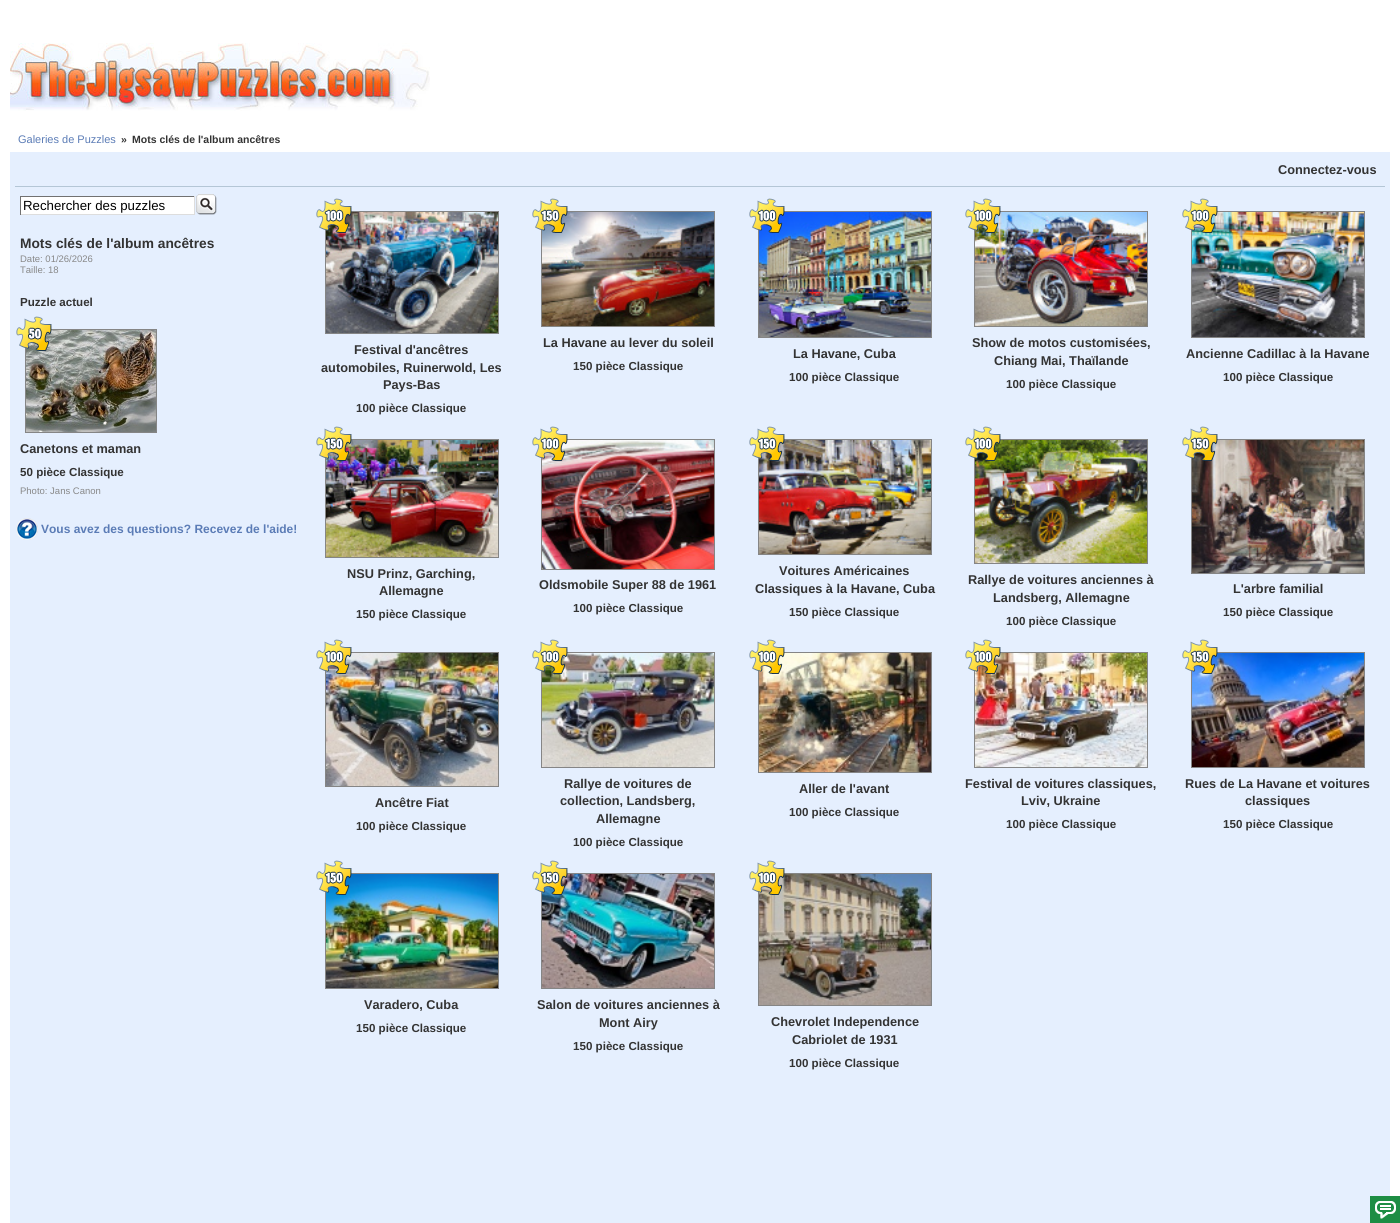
#include <cairo.h>
#include <math.h>
#include <stddef.h>

typedef struct { double x, y; const char *s; } line_t;
typedef struct { double x, y, w, h; unsigned color; } box_t;

static void ink(cairo_t *ctx, unsigned color) {
    cairo_set_source_rgb(ctx, (color >> 16) / 255.0, (color >> 8 & 255) / 255.0, (color & 255) / 255.0);
}

static void paste(cairo_t *ctx, const char *path, double x, double y, double w, double h) {
    cairo_surface_t *image = cairo_image_surface_create_from_png(path);
    cairo_save(ctx);
    cairo_set_source_surface(ctx, image, x, y);
    cairo_rectangle(ctx, x, y, w, h);
    cairo_fill(ctx);
    cairo_restore(ctx);
    cairo_surface_destroy(image);
}

int main(void) {
    cairo_surface_t *surface = cairo_image_surface_create(CAIRO_FORMAT_RGB24, 1400, 1223);
    cairo_t *ctx = cairo_create(surface);
    cairo_font_options_t *options = cairo_font_options_create();
    cairo_font_options_set_hint_metrics(options, CAIRO_HINT_METRICS_OFF);
    cairo_font_options_set_hint_style(options, CAIRO_HINT_STYLE_NONE);
    cairo_set_font_options(ctx, options);
    cairo_set_miter_limit(ctx, 4);
    ink(ctx, 0xFFFFFF);
    cairo_paint(ctx);
    paste(ctx, "media/1.png", 10, 43, 420, 68);
    cairo_select_font_face(ctx, "Liberation Sans", CAIRO_FONT_SLANT_NORMAL, CAIRO_FONT_WEIGHT_NORMAL);
    cairo_set_font_size(ctx, 11);
    ink(ctx, 0x5B7CB6);
    cairo_move_to(ctx, 18, 143);
    cairo_show_text(ctx, "Galeries de Puzzles");
    cairo_select_font_face(ctx, "Liberation Sans", CAIRO_FONT_SLANT_NORMAL, CAIRO_FONT_WEIGHT_BOLD);
    cairo_set_font_size(ctx, 10.5);
    ink(ctx, 0x333333);
    cairo_move_to(ctx, 121, 143);
    cairo_show_text(ctx, "»");
    cairo_move_to(ctx, 132, 143);
    cairo_show_text(ctx, "Mots clés de l'album ancêtres");
    ink(ctx, 0xE5EFFE);
    cairo_rectangle(ctx, 10, 152, 1380, 1071);
    cairo_fill(ctx);
    ink(ctx, 0xB4C6D6);
    cairo_rectangle(ctx, 15, 186, 1370, 1);
    cairo_fill(ctx);
    cairo_set_font_size(ctx, 12.75);
    ink(ctx, 0x333333);
    cairo_move_to(ctx, 1278, 174);
    cairo_show_text(ctx, "Connectez-vous");
    {
        static const box_t items[] = {
            {21, 197, 173, 17, 0xFFFFFF},
            {20, 196, 175, 1, 0x717171},
            {194, 196, 1, 19, 0xDDDDDD},
            {20, 214, 175, 1, 0xDDDDDD},
            {20, 196, 1, 19, 0x717171},
        };
        for (size_t i = 0; i < sizeof items / sizeof *items; i++) {
            ink(ctx, items[i].color);
            cairo_rectangle(ctx, items[i].x, items[i].y, items[i].w, items[i].h);
            cairo_fill(ctx);
        }
    }
    cairo_select_font_face(ctx, "Liberation Sans", CAIRO_FONT_SLANT_NORMAL, CAIRO_FONT_WEIGHT_NORMAL);
    cairo_set_font_size(ctx, 13.25);
    ink(ctx, 0x000000);
    cairo_move_to(ctx, 23, 210);
    cairo_show_text(ctx, "Rechercher des puzzles");
    paste(ctx, "media/2.png", 196, 194, 21, 21);
    cairo_select_font_face(ctx, "Liberation Sans", CAIRO_FONT_SLANT_NORMAL, CAIRO_FONT_WEIGHT_BOLD);
    cairo_set_font_size(ctx, 13.75);
    ink(ctx, 0x333333);
    cairo_move_to(ctx, 20, 248);
    cairo_show_text(ctx, "Mots clés de l'album ancêtres");
    cairo_select_font_face(ctx, "Liberation Sans", CAIRO_FONT_SLANT_NORMAL, CAIRO_FONT_WEIGHT_NORMAL);
    cairo_set_font_size(ctx, 9.5);
    ink(ctx, 0x888888);
    cairo_move_to(ctx, 20, 262);
    cairo_show_text(ctx, "Date: 01/26/2026");
    cairo_move_to(ctx, 20, 273);
    cairo_show_text(ctx, "Taille: 18");
    cairo_select_font_face(ctx, "Liberation Sans", CAIRO_FONT_SLANT_NORMAL, CAIRO_FONT_WEIGHT_BOLD);
    cairo_set_font_size(ctx, 11.6);
    ink(ctx, 0x333333);
    cairo_move_to(ctx, 20, 306);
    cairo_show_text(ctx, "Puzzle actuel");
    cairo_rectangle(ctx, 25.5, 329.5, 131, 103);
    ink(ctx, 0x858585);
    cairo_set_line_width(ctx, 1);
    cairo_stroke(ctx);
    paste(ctx, "media/4.png", 26, 330, 130, 102);
    paste(ctx, "media/3.png", 16, 316, 36, 35);
    cairo_set_font_size(ctx, 12.75);
    ink(ctx, 0x333333);
    cairo_move_to(ctx, 20, 453);
    cairo_show_text(ctx, "Canetons et maman");
    cairo_set_font_size(ctx, 11.6);
    cairo_move_to(ctx, 20, 476);
    cairo_show_text(ctx, "50 pièce Classique");
    cairo_select_font_face(ctx, "Liberation Sans", CAIRO_FONT_SLANT_NORMAL, CAIRO_FONT_WEIGHT_NORMAL);
    cairo_set_font_size(ctx, 9.5);
    ink(ctx, 0x888888);
    cairo_move_to(ctx, 20, 494);
    cairo_show_text(ctx, "Photo: Jans Canon");
    paste(ctx, "media/5.png", 16, 518, 22, 22);
    cairo_select_font_face(ctx, "Liberation Sans", CAIRO_FONT_SLANT_NORMAL, CAIRO_FONT_WEIGHT_BOLD);
    cairo_set_font_size(ctx, 12);
    ink(ctx, 0x5B7CB6);
    cairo_move_to(ctx, 41, 533);
    cairo_show_text(ctx, "Vous avez des questions? Recevez de l'aide!");
    cairo_rectangle(ctx, 325.5, 211.5, 173, 122);
    ink(ctx, 0x858585);
    cairo_stroke(ctx);
    paste(ctx, "media/7.png", 326, 212, 172, 121);
    paste(ctx, "media/6.png", 316, 198, 36, 35);
    cairo_set_font_size(ctx, 12.75);
    ink(ctx, 0x333333);
    {
        static const line_t items[] = {
            {354, 354, "Festival d'ancêtres"},
            {321, 372, "automobiles, Ruinerwold, Les"},
            {383, 389, "Pays-Bas"},
        };
        for (size_t i = 0; i < sizeof items / sizeof *items; i++) {
            cairo_move_to(ctx, items[i].x, items[i].y);
            cairo_show_text(ctx, items[i].s);
        }
    }
    cairo_set_font_size(ctx, 11.6);
    cairo_move_to(ctx, 356, 412);
    cairo_show_text(ctx, "100 pièce Classique");
    cairo_rectangle(ctx, 541.5, 211.5, 173, 115);
    ink(ctx, 0x858585);
    cairo_stroke(ctx);
    paste(ctx, "media/9.png", 542, 212, 172, 114);
    paste(ctx, "media/8.png", 532, 198, 36, 35);
    cairo_set_font_size(ctx, 12.75);
    ink(ctx, 0x333333);
    cairo_move_to(ctx, 543, 347);
    cairo_show_text(ctx, "La Havane au lever du soleil");
    cairo_set_font_size(ctx, 11.6);
    cairo_move_to(ctx, 573, 370);
    cairo_show_text(ctx, "150 pièce Classique");
    cairo_rectangle(ctx, 758.5, 211.5, 173, 126);
    ink(ctx, 0x858585);
    cairo_stroke(ctx);
    paste(ctx, "media/11.png", 759, 212, 172, 125);
    paste(ctx, "media/10.png", 749, 198, 36, 35);
    cairo_set_font_size(ctx, 12.75);
    ink(ctx, 0x333333);
    cairo_move_to(ctx, 793, 358);
    cairo_show_text(ctx, "La Havane, Cuba");
    cairo_set_font_size(ctx, 11.6);
    cairo_move_to(ctx, 789, 381);
    cairo_show_text(ctx, "100 pièce Classique");
    cairo_rectangle(ctx, 974.5, 211.5, 173, 115);
    ink(ctx, 0x858585);
    cairo_stroke(ctx);
    paste(ctx, "media/13.png", 975, 212, 172, 114);
    paste(ctx, "media/12.png", 965, 198, 36, 35);
    cairo_set_font_size(ctx, 12.75);
    ink(ctx, 0x333333);
    cairo_move_to(ctx, 972, 347);
    cairo_show_text(ctx, "Show de motos customisées,");
    cairo_move_to(ctx, 994, 365);
    cairo_show_text(ctx, "Chiang Mai, Thaïlande");
    cairo_set_font_size(ctx, 11.6);
    cairo_move_to(ctx, 1006, 388);
    cairo_show_text(ctx, "100 pièce Classique");
    cairo_rectangle(ctx, 1191.5, 211.5, 173, 126);
    ink(ctx, 0x858585);
    cairo_stroke(ctx);
    paste(ctx, "media/15.png", 1192, 212, 172, 125);
    paste(ctx, "media/14.png", 1182, 198, 36, 35);
    cairo_set_font_size(ctx, 12.75);
    ink(ctx, 0x333333);
    cairo_move_to(ctx, 1186, 358);
    cairo_show_text(ctx, "Ancienne Cadillac à la Havane");
    cairo_set_font_size(ctx, 11.6);
    cairo_move_to(ctx, 1223, 381);
    cairo_show_text(ctx, "100 pièce Classique");
    cairo_rectangle(ctx, 325.5, 439.5, 173, 118);
    ink(ctx, 0x858585);
    cairo_stroke(ctx);
    paste(ctx, "media/17.png", 326, 440, 172, 117);
    paste(ctx, "media/16.png", 316, 426, 36, 35);
    cairo_set_font_size(ctx, 12.75);
    ink(ctx, 0x333333);
    cairo_move_to(ctx, 347, 578);
    cairo_show_text(ctx, "NSU Prinz, Garching,");
    cairo_move_to(ctx, 379, 595);
    cairo_show_text(ctx, "Allemagne");
    cairo_set_font_size(ctx, 11.6);
    cairo_move_to(ctx, 356, 618);
    cairo_show_text(ctx, "150 pièce Classique");
    cairo_rectangle(ctx, 541.5, 439.5, 173, 130);
    ink(ctx, 0x858585);
    cairo_stroke(ctx);
    paste(ctx, "media/19.png", 542, 440, 172, 129);
    paste(ctx, "media/18.png", 532, 426, 36, 35);
    cairo_set_font_size(ctx, 12.75);
    ink(ctx, 0x333333);
    cairo_move_to(ctx, 539, 589);
    cairo_show_text(ctx, "Oldsmobile Super 88 de 1961");
    cairo_set_font_size(ctx, 11.6);
    cairo_move_to(ctx, 573, 612);
    cairo_show_text(ctx, "100 pièce Classique");
    cairo_rectangle(ctx, 758.5, 439.5, 173, 115);
    ink(ctx, 0x858585);
    cairo_stroke(ctx);
    paste(ctx, "media/21.png", 759, 440, 172, 114);
    paste(ctx, "media/20.png", 749, 426, 36, 35);
    cairo_set_font_size(ctx, 12.75);
    ink(ctx, 0x333333);
    cairo_move_to(ctx, 779, 575);
    cairo_show_text(ctx, "Voitures Américaines");
    cairo_move_to(ctx, 755, 593);
    cairo_show_text(ctx, "Classiques à la Havane, Cuba");
    cairo_set_font_size(ctx, 11.6);
    cairo_move_to(ctx, 789, 616);
    cairo_show_text(ctx, "150 pièce Classique");
    cairo_rectangle(ctx, 974.5, 439.5, 173, 124);
    ink(ctx, 0x858585);
    cairo_stroke(ctx);
    paste(ctx, "media/23.png", 975, 440, 172, 123);
    paste(ctx, "media/22.png", 965, 426, 36, 35);
    cairo_set_font_size(ctx, 12.75);
    ink(ctx, 0x333333);
    cairo_move_to(ctx, 968, 584);
    cairo_show_text(ctx, "Rallye de voitures anciennes à");
    cairo_move_to(ctx, 993, 602);
    cairo_show_text(ctx, "Landsberg, Allemagne");
    cairo_set_font_size(ctx, 11.6);
    cairo_move_to(ctx, 1006, 625);
    cairo_show_text(ctx, "100 pièce Classique");
    cairo_rectangle(ctx, 1191.5, 439.5, 173, 134);
    ink(ctx, 0x858585);
    cairo_stroke(ctx);
    paste(ctx, "media/25.png", 1192, 440, 172, 133);
    paste(ctx, "media/24.png", 1182, 426, 36, 35);
    cairo_set_font_size(ctx, 12.75);
    ink(ctx, 0x333333);
    cairo_move_to(ctx, 1233, 593);
    cairo_show_text(ctx, "L'arbre familial");
    cairo_set_font_size(ctx, 11.6);
    cairo_move_to(ctx, 1223, 616);
    cairo_show_text(ctx, "150 pièce Classique");
    cairo_rectangle(ctx, 325.5, 652.5, 173, 134);
    ink(ctx, 0x858585);
    cairo_stroke(ctx);
    paste(ctx, "media/27.png", 326, 653, 172, 133);
    paste(ctx, "media/26.png", 316, 639, 36, 35);
    cairo_set_font_size(ctx, 12.75);
    ink(ctx, 0x333333);
    cairo_move_to(ctx, 375, 807);
    cairo_show_text(ctx, "Ancêtre Fiat");
    cairo_set_font_size(ctx, 11.6);
    cairo_move_to(ctx, 356, 830);
    cairo_show_text(ctx, "100 pièce Classique");
    cairo_rectangle(ctx, 541.5, 652.5, 173, 115);
    ink(ctx, 0x858585);
    cairo_stroke(ctx);
    paste(ctx, "media/29.png", 542, 653, 172, 114);
    paste(ctx, "media/28.png", 532, 639, 36, 35);
    cairo_set_font_size(ctx, 12.75);
    ink(ctx, 0x333333);
    {
        static const line_t items[] = {
            {564, 788, "Rallye de voitures de"},
            {560, 805, "collection, Landsberg,"},
            {596, 823, "Allemagne"},
        };
        for (size_t i = 0; i < sizeof items / sizeof *items; i++) {
            cairo_move_to(ctx, items[i].x, items[i].y);
            cairo_show_text(ctx, items[i].s);
        }
    }
    cairo_set_font_size(ctx, 11.6);
    cairo_move_to(ctx, 573, 846);
    cairo_show_text(ctx, "100 pièce Classique");
    cairo_rectangle(ctx, 758.5, 652.5, 173, 120);
    ink(ctx, 0x858585);
    cairo_stroke(ctx);
    paste(ctx, "media/31.png", 759, 653, 172, 119);
    paste(ctx, "media/30.png", 749, 639, 36, 35);
    cairo_set_font_size(ctx, 12.75);
    ink(ctx, 0x333333);
    cairo_move_to(ctx, 799, 793);
    cairo_show_text(ctx, "Aller de l'avant");
    cairo_set_font_size(ctx, 11.6);
    cairo_move_to(ctx, 789, 816);
    cairo_show_text(ctx, "100 pièce Classique");
    cairo_rectangle(ctx, 974.5, 652.5, 173, 115);
    ink(ctx, 0x858585);
    cairo_stroke(ctx);
    paste(ctx, "media/33.png", 975, 653, 172, 114);
    paste(ctx, "media/32.png", 965, 639, 36, 35);
    cairo_set_font_size(ctx, 12.75);
    ink(ctx, 0x333333);
    cairo_move_to(ctx, 965, 788);
    cairo_show_text(ctx, "Festival de voitures classiques,");
    cairo_move_to(ctx, 1021, 805);
    cairo_show_text(ctx, "Lviv, Ukraine");
    cairo_set_font_size(ctx, 11.6);
    cairo_move_to(ctx, 1006, 828);
    cairo_show_text(ctx, "100 pièce Classique");
    cairo_rectangle(ctx, 1191.5, 652.5, 173, 115);
    ink(ctx, 0x858585);
    cairo_stroke(ctx);
    paste(ctx, "media/35.png", 1192, 653, 172, 114);
    paste(ctx, "media/34.png", 1182, 639, 36, 35);
    cairo_set_font_size(ctx, 12.75);
    ink(ctx, 0x333333);
    cairo_move_to(ctx, 1185, 788);
    cairo_show_text(ctx, "Rues de La Havane et voitures");
    cairo_move_to(ctx, 1245, 805);
    cairo_show_text(ctx, "classiques");
    cairo_set_font_size(ctx, 11.6);
    cairo_move_to(ctx, 1223, 828);
    cairo_show_text(ctx, "150 pièce Classique");
    cairo_rectangle(ctx, 325.5, 873.5, 173, 115);
    ink(ctx, 0x858585);
    cairo_stroke(ctx);
    paste(ctx, "media/37.png", 326, 874, 172, 114);
    paste(ctx, "media/36.png", 316, 860, 36, 35);
    cairo_set_font_size(ctx, 12.75);
    ink(ctx, 0x333333);
    cairo_move_to(ctx, 364, 1009);
    cairo_show_text(ctx, "Varadero, Cuba");
    cairo_set_font_size(ctx, 11.6);
    cairo_move_to(ctx, 356, 1032);
    cairo_show_text(ctx, "150 pièce Classique");
    cairo_rectangle(ctx, 541.5, 873.5, 173, 115);
    ink(ctx, 0x858585);
    cairo_stroke(ctx);
    paste(ctx, "media/39.png", 542, 874, 172, 114);
    paste(ctx, "media/38.png", 532, 860, 36, 35);
    cairo_set_font_size(ctx, 12.75);
    ink(ctx, 0x333333);
    cairo_move_to(ctx, 537, 1009);
    cairo_show_text(ctx, "Salon de voitures anciennes à");
    cairo_move_to(ctx, 599, 1027);
    cairo_show_text(ctx, "Mont Airy");
    cairo_set_font_size(ctx, 11.6);
    cairo_move_to(ctx, 573, 1050);
    cairo_show_text(ctx, "150 pièce Classique");
    cairo_rectangle(ctx, 758.5, 873.5, 173, 132);
    ink(ctx, 0x858585);
    cairo_stroke(ctx);
    paste(ctx, "media/41.png", 759, 874, 172, 131);
    paste(ctx, "media/40.png", 749, 860, 36, 35);
    cairo_set_font_size(ctx, 12.75);
    ink(ctx, 0x333333);
    cairo_move_to(ctx, 771, 1026);
    cairo_show_text(ctx, "Chevrolet Independence");
    cairo_move_to(ctx, 792, 1044);
    cairo_show_text(ctx, "Cabriolet de 1931");
    cairo_set_font_size(ctx, 11.6);
    cairo_move_to(ctx, 789, 1067);
    cairo_show_text(ctx, "100 pièce Classique");
    ink(ctx, 0x1D8D44);
    cairo_rectangle(ctx, 1370, 1196, 30, 27);
    cairo_fill(ctx);
    paste(ctx, "media/42.png", 1375, 1201, 21, 18);
    cairo_surface_write_to_png(surface, "image.png");
    cairo_font_options_destroy(options);
    cairo_destroy(ctx);
    cairo_surface_destroy(surface);
    return 0;
}
